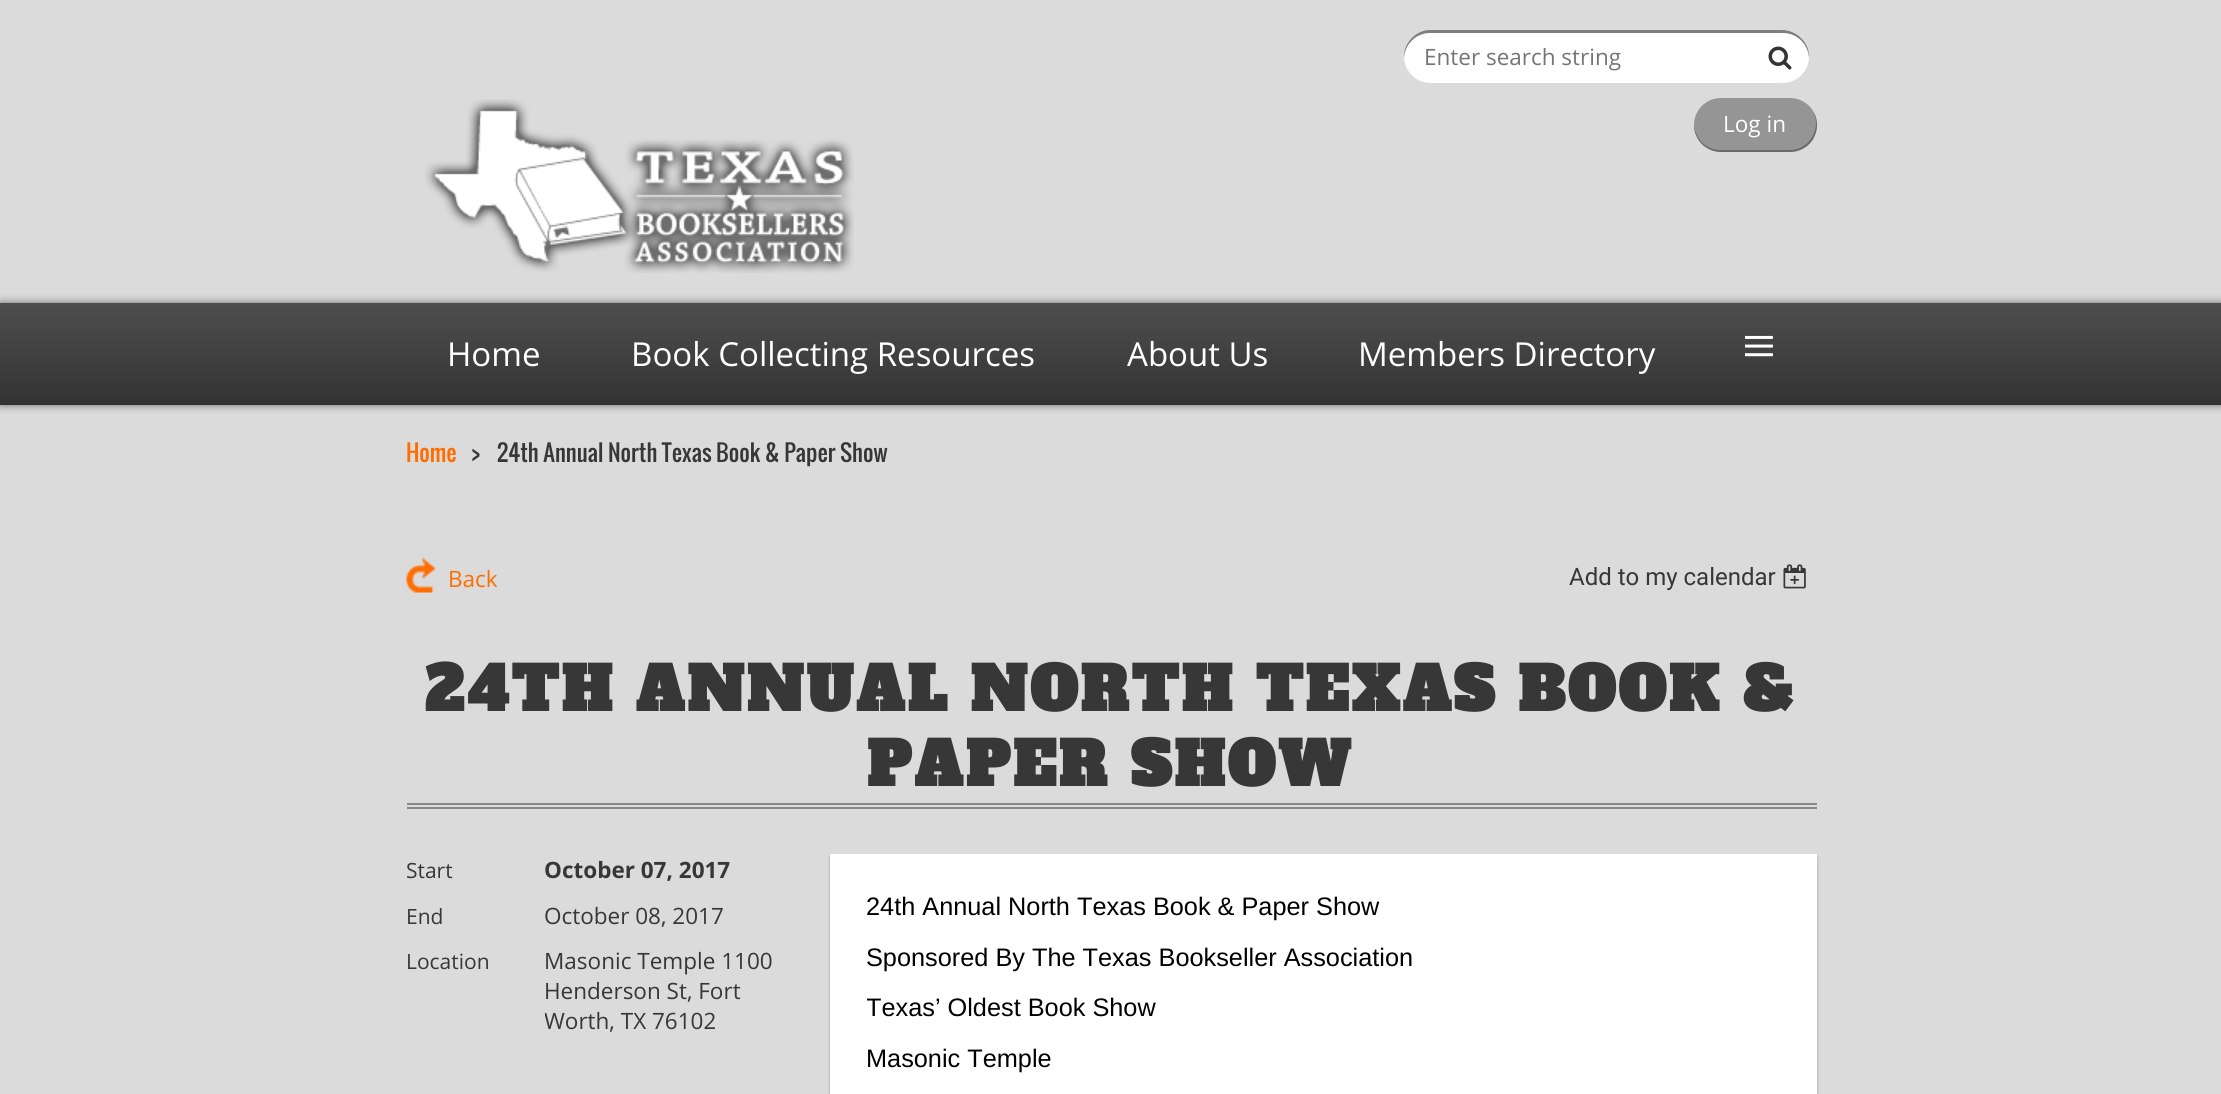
#include <cairo.h>
#include <math.h>
#include <stddef.h>

typedef struct { double x, y; const char *s; } line_t;

static void ink(cairo_t *ctx, unsigned color) {
    cairo_set_source_rgb(ctx, (color >> 16) / 255.0, (color >> 8 & 255) / 255.0, (color & 255) / 255.0);
}

static void write_spaced(cairo_t *ctx, double x, double y, const char *s, double letter, double word) {
    cairo_move_to(ctx, x, y);
    while (*s) {
        char ch[5] = {0};
        int n = 0;
        do ch[n++] = *s++; while ((*s & 0xC0) == 0x80);
        cairo_show_text(ctx, ch);
        cairo_rel_move_to(ctx, letter + word * (*ch == ' '), 0);
    }
}

static void round_path(cairo_t *ctx, double x, double y, double w, double h, double r) {
    cairo_new_sub_path(ctx);
    cairo_arc(ctx, x + w - r, y + h - r, r, 0, M_PI / 2);
    cairo_arc(ctx, x + r, y + h - r, r, M_PI / 2, M_PI);
    cairo_arc(ctx, x + r, y + r, r, M_PI, 1.5 * M_PI);
    cairo_arc(ctx, x + w - r, y + r, r, 1.5 * M_PI, 2 * M_PI);
    cairo_close_path(ctx);
}

static void blur_box(cairo_t *ctx, double x, double y, double w, double h, double r, double blur, double alpha) {
    cairo_push_group_with_content(ctx, CAIRO_CONTENT_ALPHA);
    cairo_set_operator(ctx, CAIRO_OPERATOR_SOURCE);
    for (int i = 15; i >= -15 && fmin(w, h) + blur * i / 3 > 0; i -= 2) {
        double e = blur * i / 6;
        cairo_set_source_rgba(ctx, 0, 0, 0, alpha * erfc((i - 1) / 8.5) / 2);
        round_path(ctx, x - e, y - e, w + 2 * e, h + 2 * e, fmax(0, fmin(r + e + blur * .6, fmin(w, h) / 2 + e)));
        cairo_fill(ctx);
    }
    cairo_pattern_t *soft = cairo_pop_group(ctx);
    cairo_mask(ctx, soft);
    cairo_pattern_destroy(soft);
}

static void paste(cairo_t *ctx, const char *path, double x, double y, double w, double h) {
    cairo_surface_t *image = cairo_image_surface_create_from_png(path);
    cairo_save(ctx);
    cairo_set_source_surface(ctx, image, x, y);
    cairo_rectangle(ctx, x, y, w, h);
    cairo_fill(ctx);
    cairo_restore(ctx);
    cairo_surface_destroy(image);
}

int main(void) {
    cairo_surface_t *surface = cairo_image_surface_create(CAIRO_FORMAT_RGB24, 2221, 1094);
    cairo_t *ctx = cairo_create(surface);
    cairo_font_options_t *options = cairo_font_options_create();
    cairo_font_options_set_hint_metrics(options, CAIRO_HINT_METRICS_OFF);
    cairo_font_options_set_hint_style(options, CAIRO_HINT_STYLE_NONE);
    cairo_set_font_options(ctx, options);
    cairo_set_miter_limit(ctx, 4);
    cairo_pattern_t *gradient;
    ink(ctx, 0xDBDBDB);
    cairo_paint(ctx);
    ink(ctx, 0xFFFFFF);
    round_path(ctx, 1404, 30, 405, 53, 26.5);
    cairo_fill(ctx);
    cairo_set_source_rgba(ctx, 0, 0, 0, 0.5);
    cairo_new_path(ctx);
    cairo_move_to(ctx, 1430, 33);
    cairo_line_to(ctx, 1783, 33);
    cairo_curve_to(ctx, 1797, 33, 1808, 44, 1809, 58);
    cairo_curve_to(ctx, 1810, 43, 1797, 30, 1782, 30);
    cairo_line_to(ctx, 1430, 30);
    cairo_curve_to(ctx, 1416, 30, 1403, 43, 1404, 58);
    cairo_curve_to(ctx, 1405, 44, 1416, 33, 1430, 33);
    cairo_close_path(ctx);
    cairo_fill(ctx);
    cairo_select_font_face(ctx, "Open Sans", CAIRO_FONT_SLANT_NORMAL, CAIRO_FONT_WEIGHT_NORMAL);
    cairo_set_font_size(ctx, 22.5);
    ink(ctx, 0x757575);
    cairo_move_to(ctx, 1424, 65);
    cairo_show_text(ctx, "Enter search string");
    paste(ctx, "media/1.png", 1768, 46, 24, 24);
    paste(ctx, "media/2.png", 425, 99, 429, 174);
    ink(ctx, 0x959595);
    round_path(ctx, 1694, 98, 123, 54, 27);
    cairo_fill(ctx);
    cairo_set_source_rgba(ctx, 0, 0, 0, 0.3);
    cairo_new_path(ctx);
    cairo_move_to(ctx, 1694, 124);
    cairo_line_to(ctx, 1694, 125);
    cairo_curve_to(ctx, 1694, 140, 1706, 152, 1721, 152);
    cairo_line_to(ctx, 1790, 152);
    cairo_curve_to(ctx, 1805, 152, 1817, 140, 1817, 125);
    cairo_curve_to(ctx, 1817, 120, 1816, 116, 1814, 112);
    cairo_curve_to(ctx, 1815, 116, 1816, 119, 1816, 123);
    cairo_curve_to(ctx, 1816, 138, 1804, 150, 1790, 150);
    cairo_line_to(ctx, 1720, 150);
    cairo_curve_to(ctx, 1706, 150, 1695, 139, 1694, 124);
    cairo_close_path(ctx);
    cairo_fill(ctx);
    ink(ctx, 0xFFFFFF);
    cairo_move_to(ctx, 1723, 132);
    cairo_show_text(ctx, "Log in");
    ink(ctx, 0x000000);
    blur_box(ctx, 0, 303, 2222, 102, 0, 4.5, 0.5);
    gradient = cairo_pattern_create_linear(1111, 303, 1111, 405);
    cairo_pattern_add_color_stop_rgba(gradient, 0, 0.31, 0.306, 0.306, 1);
    cairo_pattern_add_color_stop_rgba(gradient, 1, 0.2, 0.2, 0.2, 1);
    cairo_set_source(ctx, gradient);
    cairo_pattern_destroy(gradient);
    cairo_rectangle(ctx, 0, 303, 2221, 102);
    cairo_fill(ctx);
    cairo_set_font_size(ctx, 33);
    ink(ctx, 0xFFFFFF);
    {
        static const line_t items[] = {
            {447, 366, "Home"},
            {631, 366, "Book Collecting Resources"},
            {1127, 366, "About Us"},
            {1358, 366, "Members Directory"},
        };
        for (size_t i = 0; i < sizeof items / sizeof *items; i++) {
            cairo_move_to(ctx, items[i].x, items[i].y);
            cairo_show_text(ctx, items[i].s);
        }
    }
    cairo_select_font_face(ctx, "Liberation Serif", CAIRO_FONT_SLANT_NORMAL, CAIRO_FONT_WEIGHT_NORMAL);
    cairo_set_font_size(ctx, 60);
    cairo_move_to(ctx, 1742, 366);
    cairo_show_text(ctx, "≡");
    cairo_select_font_face(ctx, "Oswald", CAIRO_FONT_SLANT_NORMAL, CAIRO_FONT_WEIGHT_NORMAL);
    cairo_set_font_size(ctx, 22.5);
    ink(ctx, 0xFF6C00);
    cairo_move_to(ctx, 406, 462);
    cairo_show_text(ctx, "Home");
    ink(ctx, 0x373737);
    cairo_move_to(ctx, 471, 462);
    cairo_show_text(ctx, ">");
    cairo_move_to(ctx, 497, 462);
    cairo_show_text(ctx, "24th Annual North Texas Book & Paper Show");
    paste(ctx, "media/3.png", 406, 558, 29, 35);
    cairo_select_font_face(ctx, "Open Sans", CAIRO_FONT_SLANT_NORMAL, CAIRO_FONT_WEIGHT_NORMAL);
    ink(ctx, 0xFF6C00);
    cairo_move_to(ctx, 448, 587);
    cairo_show_text(ctx, "Back");
    cairo_select_font_face(ctx, "Roboto", CAIRO_FONT_SLANT_NORMAL, CAIRO_FONT_WEIGHT_NORMAL);
    cairo_set_font_size(ctx, 24);
    ink(ctx, 0x373737);
    cairo_move_to(ctx, 1569, 585);
    cairo_show_text(ctx, "Add to my calendar");
    paste(ctx, "media/4.png", 1783, 564, 23, 25);
    ink(ctx, 0x898989);
    cairo_rectangle(ctx, 407, 803, 1410, 2);
    cairo_fill(ctx);
    cairo_rectangle(ctx, 407, 807, 1410, 2);
    cairo_fill(ctx);
    cairo_select_font_face(ctx, "Alfa Slab One", CAIRO_FONT_SLANT_NORMAL, CAIRO_FONT_WEIGHT_BOLD);
    cairo_set_font_size(ctx, 60);
    ink(ctx, 0x373737);
    write_spaced(ctx, 425, 711, "24TH ANNUAL NORTH TEXAS BOOK &", 3, 0);
    write_spaced(ctx, 867, 786, "PAPER SHOW", 3, 0);
    cairo_select_font_face(ctx, "Open Sans", CAIRO_FONT_SLANT_NORMAL, CAIRO_FONT_WEIGHT_NORMAL);
    cairo_set_font_size(ctx, 21);
    cairo_move_to(ctx, 406, 878);
    cairo_show_text(ctx, "Start");
    cairo_select_font_face(ctx, "Open Sans", CAIRO_FONT_SLANT_NORMAL, CAIRO_FONT_WEIGHT_BOLD);
    cairo_set_font_size(ctx, 22.5);
    cairo_move_to(ctx, 544, 878);
    cairo_show_text(ctx, "October 07, 2017");
    cairo_select_font_face(ctx, "Open Sans", CAIRO_FONT_SLANT_NORMAL, CAIRO_FONT_WEIGHT_NORMAL);
    cairo_set_font_size(ctx, 21);
    cairo_move_to(ctx, 406, 924);
    cairo_show_text(ctx, "End");
    cairo_set_font_size(ctx, 22.5);
    cairo_move_to(ctx, 544, 924);
    cairo_show_text(ctx, "October 08, 2017");
    cairo_set_font_size(ctx, 21);
    cairo_move_to(ctx, 406, 969);
    cairo_show_text(ctx, "Location");
    cairo_set_font_size(ctx, 22.5);
    cairo_move_to(ctx, 544, 969);
    cairo_show_text(ctx, "Masonic Temple 1100");
    cairo_move_to(ctx, 544, 999);
    cairo_show_text(ctx, "Henderson St, Fort");
    cairo_save(ctx);
    cairo_rectangle(ctx, 545, 945, 240, 90);
    cairo_clip(ctx);
    cairo_move_to(ctx, 544, 1029);
    cairo_show_text(ctx, "Worth, TX 76102");
    cairo_restore(ctx);
    ink(ctx, 0x000000);
    blur_box(ctx, 830, 857, 987, 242, 0, 1.5, 0.3);
    ink(ctx, 0xFFFFFF);
    cairo_rectangle(ctx, 830, 854, 987, 240);
    cairo_fill(ctx);
    cairo_select_font_face(ctx, "Liberation Sans", CAIRO_FONT_SLANT_NORMAL, CAIRO_FONT_WEIGHT_NORMAL);
    cairo_set_font_size(ctx, 25.3);
    ink(ctx, 0x000000);
    cairo_move_to(ctx, 866, 915);
    cairo_show_text(ctx, "24th Annual North Texas Book & Paper Show");
    cairo_move_to(ctx, 866, 966);
    cairo_show_text(ctx, "Sponsored By The Texas Bookseller Association");
    cairo_save(ctx);
    cairo_rectangle(ctx, 867, 891, 912, 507);
    cairo_clip(ctx);
    cairo_move_to(ctx, 866, 1016);
    cairo_show_text(ctx, "Texas’ Oldest Book Show");
    cairo_restore(ctx);
    cairo_move_to(ctx, 866, 1067);
    cairo_show_text(ctx, "Masonic Temple");
    cairo_surface_write_to_png(surface, "image.png");
    cairo_font_options_destroy(options);
    cairo_destroy(ctx);
    cairo_surface_destroy(surface);
    return 0;
}
